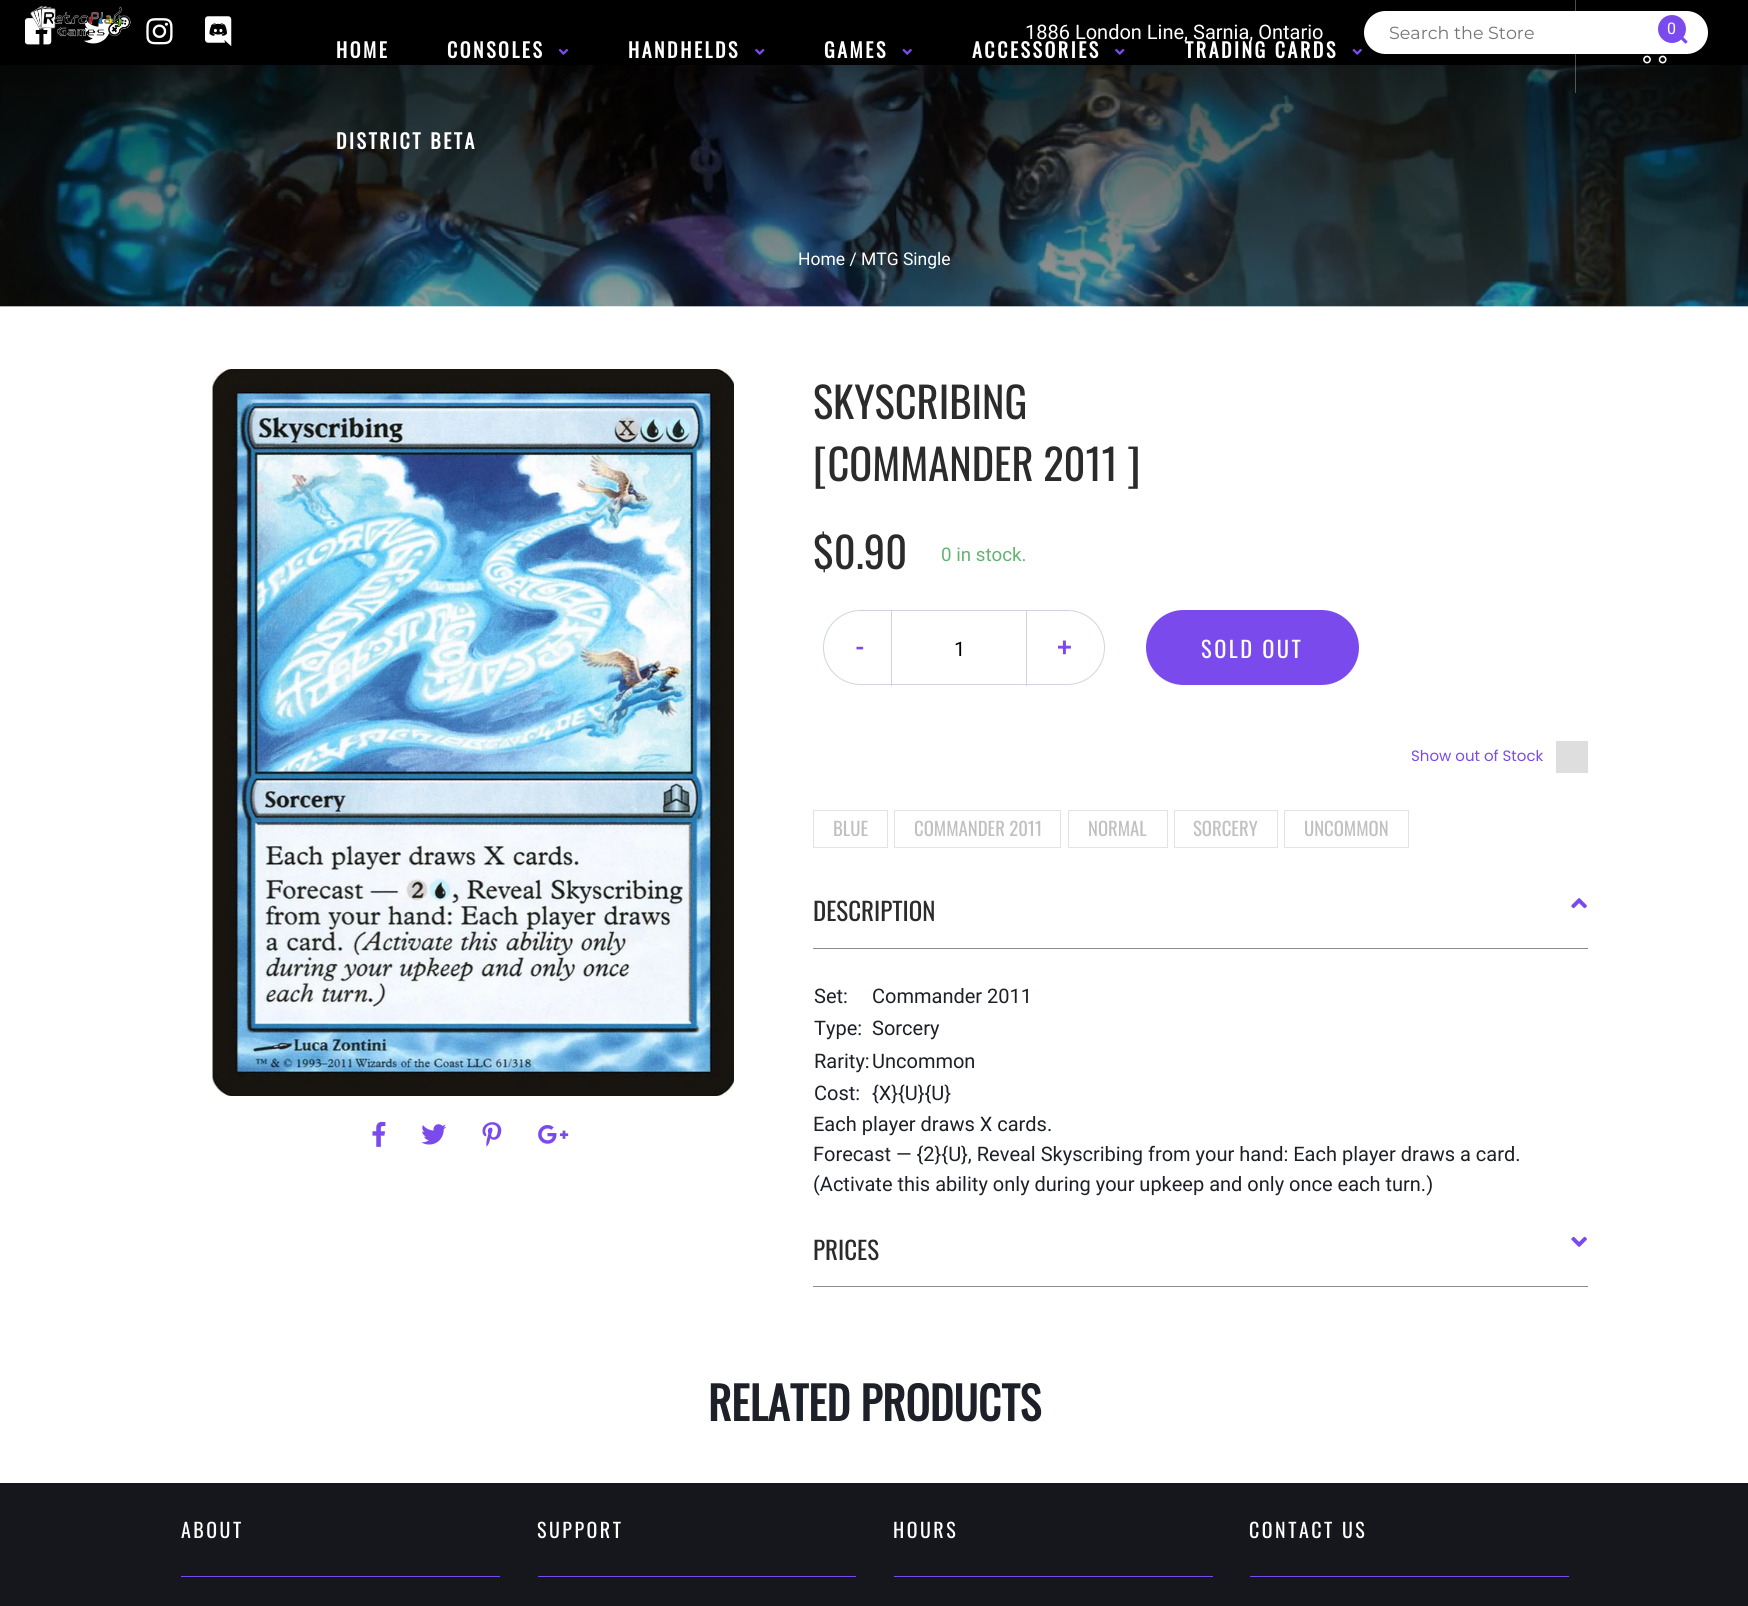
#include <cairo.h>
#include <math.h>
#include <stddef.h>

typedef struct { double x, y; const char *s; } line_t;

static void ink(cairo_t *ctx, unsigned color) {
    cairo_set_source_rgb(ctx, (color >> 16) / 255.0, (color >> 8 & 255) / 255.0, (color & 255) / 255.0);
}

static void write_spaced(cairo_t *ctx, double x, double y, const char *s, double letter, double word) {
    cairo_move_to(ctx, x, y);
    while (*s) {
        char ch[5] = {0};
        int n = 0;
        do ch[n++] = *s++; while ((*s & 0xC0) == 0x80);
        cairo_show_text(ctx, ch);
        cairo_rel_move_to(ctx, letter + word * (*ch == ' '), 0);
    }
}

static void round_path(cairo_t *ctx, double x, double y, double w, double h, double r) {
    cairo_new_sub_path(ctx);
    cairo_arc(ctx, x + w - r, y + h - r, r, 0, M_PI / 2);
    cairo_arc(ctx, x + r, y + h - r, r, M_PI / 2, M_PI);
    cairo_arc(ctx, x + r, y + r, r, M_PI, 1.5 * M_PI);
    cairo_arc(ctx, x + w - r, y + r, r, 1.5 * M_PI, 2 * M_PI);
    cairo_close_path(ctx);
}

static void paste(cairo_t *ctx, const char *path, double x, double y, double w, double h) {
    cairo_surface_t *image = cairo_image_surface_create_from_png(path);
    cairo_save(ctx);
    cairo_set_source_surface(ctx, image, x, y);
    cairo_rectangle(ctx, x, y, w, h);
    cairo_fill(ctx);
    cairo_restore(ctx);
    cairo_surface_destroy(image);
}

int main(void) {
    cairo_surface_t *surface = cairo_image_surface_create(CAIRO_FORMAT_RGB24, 1748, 1606);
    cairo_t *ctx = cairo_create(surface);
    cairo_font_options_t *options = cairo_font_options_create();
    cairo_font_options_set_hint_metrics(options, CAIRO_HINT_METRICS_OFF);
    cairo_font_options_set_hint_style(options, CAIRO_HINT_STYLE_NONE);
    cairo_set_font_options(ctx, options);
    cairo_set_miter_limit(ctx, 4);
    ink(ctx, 0xFFFFFF);
    cairo_paint(ctx);
    ink(ctx, 0x000000);
    cairo_rectangle(ctx, 0, 0, 1748, 65);
    cairo_fill(ctx);
    paste(ctx, "media/6.png", 25, 18, 27, 27);
    paste(ctx, "media/7.png", 84, 19, 30, 25);
    paste(ctx, "media/1.png", 30, 6, 101, 31);
    ink(ctx, 0xFFFFFF);
    round_path(ctx, 1364, 11, 344, 43, 21.5);
    cairo_fill(ctx);
    paste(ctx, "media/11.png", 0, 65, 1748, 242);
    cairo_set_source_rgba(ctx, 1, 1, 1, 0.3);
    cairo_rectangle(ctx, 1575, 0, 1, 93);
    cairo_fill(ctx);
    paste(ctx, "media/2.png", 1643, 33, 27, 31);
    paste(ctx, "media/10.png", 1681, 37, 7, 7);
    ink(ctx, 0x7B4AED);
    cairo_arc(ctx, 1672, 29, 14, 0, 2 * M_PI);
    cairo_fill(ctx);
    cairo_select_font_face(ctx, "Roboto", CAIRO_FONT_SLANT_NORMAL, CAIRO_FONT_WEIGHT_NORMAL);
    cairo_set_font_size(ctx, 16);
    ink(ctx, 0xFFFFFF);
    cairo_move_to(ctx, 1667, 34);
    cairo_show_text(ctx, "0");
    cairo_select_font_face(ctx, "Oswald", CAIRO_FONT_SLANT_NORMAL, CAIRO_FONT_WEIGHT_BOLD);
    cairo_set_font_size(ctx, 20);
    write_spaced(ctx, 336, 58, "HOME", 2.5, 0);
    write_spaced(ctx, 447, 58, "CONSOLES", 2.5, 0);
    paste(ctx, "media/3.png", 558, 48, 11, 7);
    write_spaced(ctx, 628, 58, "HANDHELDS", 2.5, 0);
    paste(ctx, "media/4.png", 755, 48, 10, 7);
    write_spaced(ctx, 824, 58, "GAMES", 2.5, 0);
    paste(ctx, "media/5.png", 902, 48, 10, 7);
    write_spaced(ctx, 972, 58, "ACCESSORIES", 2.5, 0);
    paste(ctx, "media/4.png", 1115, 48, 10, 7);
    write_spaced(ctx, 1185, 58, "TRADING CARDS", 2.5, 0);
    paste(ctx, "media/5.png", 1352, 48, 10, 7);
    write_spaced(ctx, 336, 149, "DISTRICT BETA", 2.5, 0);
    paste(ctx, "media/8.png", 146, 18, 27, 27);
    paste(ctx, "media/9.png", 205, 16, 27, 31);
    cairo_select_font_face(ctx, "Roboto", CAIRO_FONT_SLANT_NORMAL, CAIRO_FONT_WEIGHT_NORMAL);
    cairo_move_to(ctx, 1025, 39);
    cairo_show_text(ctx, "1886 London Line, Sarnia, Ontario");
    cairo_select_font_face(ctx, "Montserrat", CAIRO_FONT_SLANT_NORMAL, CAIRO_FONT_WEIGHT_NORMAL);
    cairo_set_font_size(ctx, 17.5);
    ink(ctx, 0x757575);
    cairo_move_to(ctx, 1389, 39);
    cairo_show_text(ctx, "Search the Store");
    cairo_select_font_face(ctx, "Roboto", CAIRO_FONT_SLANT_NORMAL, CAIRO_FONT_WEIGHT_NORMAL);
    ink(ctx, 0xFFFFFF);
    cairo_move_to(ctx, 798, 265);
    cairo_show_text(ctx, "Home / MTG Single");
    paste(ctx, "media/12.png", 212, 369, 522, 727);
    paste(ctx, "media/13.png", 372, 1121, 14, 26);
    paste(ctx, "media/14.png", 421, 1124, 26, 21);
    paste(ctx, "media/15.png", 482, 1122, 20, 25);
    paste(ctx, "media/16.png", 538, 1125, 31, 19);
    cairo_select_font_face(ctx, "Oswald", CAIRO_FONT_SLANT_NORMAL, CAIRO_FONT_WEIGHT_NORMAL);
    cairo_set_font_size(ctx, 42.5);
    ink(ctx, 0x2B2B2B);
    {
        static const line_t items[] = {
            {813, 419, "SKYSCRIBING"},
            {813, 481, "[COMMANDER 2011 ]"},
            {813, 569, "$0.90"},
        };
        for (size_t i = 0; i < sizeof items / sizeof *items; i++) {
            cairo_move_to(ctx, items[i].x, items[i].y);
            cairo_show_text(ctx, items[i].s);
        }
    }
    cairo_select_font_face(ctx, "Roboto", CAIRO_FONT_SLANT_NORMAL, CAIRO_FONT_WEIGHT_NORMAL);
    cairo_set_font_size(ctx, 18.75);
    ink(ctx, 0x64B471);
    cairo_move_to(ctx, 941, 561);
    cairo_show_text(ctx, "0 in stock.");
    round_path(ctx, 823.5, 610.5, 281, 74, 37);
    ink(ctx, 0xD0D4E2);
    cairo_set_line_width(ctx, 1);
    cairo_stroke(ctx);
    cairo_select_font_face(ctx, "Roboto", CAIRO_FONT_SLANT_NORMAL, CAIRO_FONT_WEIGHT_BOLD);
    cairo_set_font_size(ctx, 25);
    ink(ctx, 0x7B4AED);
    cairo_move_to(ctx, 856, 656);
    cairo_show_text(ctx, "-");
    ink(ctx, 0xD0D4E2);
    cairo_rectangle(ctx, 1026, 611, 1, 75);
    cairo_fill(ctx);
    cairo_rectangle(ctx, 891, 611, 1, 75);
    cairo_fill(ctx);
    cairo_select_font_face(ctx, "Roboto", CAIRO_FONT_SLANT_NORMAL, CAIRO_FONT_WEIGHT_NORMAL);
    cairo_set_font_size(ctx, 20);
    ink(ctx, 0x000000);
    cairo_move_to(ctx, 954, 656);
    cairo_show_text(ctx, "1");
    cairo_select_font_face(ctx, "Roboto", CAIRO_FONT_SLANT_NORMAL, CAIRO_FONT_WEIGHT_BOLD);
    cairo_set_font_size(ctx, 25);
    ink(ctx, 0x7B4AED);
    cairo_move_to(ctx, 1057, 656);
    cairo_show_text(ctx, "+");
    round_path(ctx, 1146, 610, 213, 75, 37.5);
    cairo_fill(ctx);
    cairo_select_font_face(ctx, "Oswald", CAIRO_FONT_SLANT_NORMAL, CAIRO_FONT_WEIGHT_NORMAL);
    cairo_set_font_size(ctx, 22.5);
    ink(ctx, 0xFFFFFF);
    write_spaced(ctx, 1201, 658, "SOLD OUT", 2.5, 0);
    cairo_select_font_face(ctx, "Poppins", CAIRO_FONT_SLANT_NORMAL, CAIRO_FONT_WEIGHT_NORMAL);
    cairo_set_font_size(ctx, 15);
    ink(ctx, 0x7B4AED);
    cairo_move_to(ctx, 1411, 761);
    cairo_show_text(ctx, "Show out of Stock");
    ink(ctx, 0xDEDEDE);
    cairo_rectangle(ctx, 1556, 741, 32, 32);
    cairo_fill(ctx);
    cairo_rectangle(ctx, 813.5, 810.5, 74, 37);
    ink(ctx, 0xE3E3E3);
    cairo_stroke(ctx);
    cairo_select_font_face(ctx, "Oswald", CAIRO_FONT_SLANT_NORMAL, CAIRO_FONT_WEIGHT_NORMAL);
    cairo_set_font_size(ctx, 18.75);
    ink(ctx, 0xC0C0C0);
    cairo_move_to(ctx, 833, 836);
    cairo_show_text(ctx, "BLUE");
    cairo_rectangle(ctx, 894.5, 810.5, 166, 37);
    ink(ctx, 0xE3E3E3);
    cairo_stroke(ctx);
    ink(ctx, 0xC0C0C0);
    cairo_move_to(ctx, 914, 836);
    cairo_show_text(ctx, "COMMANDER 2011");
    cairo_rectangle(ctx, 1068.5, 810.5, 99, 37);
    ink(ctx, 0xE3E3E3);
    cairo_stroke(ctx);
    ink(ctx, 0xC0C0C0);
    cairo_move_to(ctx, 1088, 836);
    cairo_show_text(ctx, "NORMAL");
    cairo_rectangle(ctx, 1174.5, 810.5, 103, 37);
    ink(ctx, 0xE3E3E3);
    cairo_stroke(ctx);
    ink(ctx, 0xC0C0C0);
    cairo_move_to(ctx, 1193, 836);
    cairo_show_text(ctx, "SORCERY");
    cairo_rectangle(ctx, 1284.5, 810.5, 124, 37);
    ink(ctx, 0xE3E3E3);
    cairo_stroke(ctx);
    ink(ctx, 0xC0C0C0);
    cairo_move_to(ctx, 1304, 836);
    cairo_show_text(ctx, "UNCOMMON");
    ink(ctx, 0x898C95);
    cairo_rectangle(ctx, 813, 948, 775, 1);
    cairo_fill(ctx);
    cairo_set_font_size(ctx, 25);
    ink(ctx, 0x2B2B2B);
    cairo_move_to(ctx, 813, 921);
    cairo_show_text(ctx, "DESCRIPTION");
    paste(ctx, "media/17.png", 1571, 898, 16, 11);
    cairo_select_font_face(ctx, "Roboto", CAIRO_FONT_SLANT_NORMAL, CAIRO_FONT_WEIGHT_NORMAL);
    cairo_set_font_size(ctx, 20);
    ink(ctx, 0x1D2028);
    {
        static const line_t items[] = {
            {814, 1003, "Set:"},
            {872, 1003, "Commander 2011"},
            {814, 1035, "Type:"},
            {872, 1035, "Sorcery"},
            {814, 1068, "Rarity:"},
            {872, 1068, "Uncommon"},
            {814, 1100, "Cost:"},
            {872, 1100, "{X}{U}{U}"},
            {813, 1131, "Each player draws X cards."},
            {813, 1161, "Forecast — {2}{U}, Reveal Skyscribing from your hand: Each player draws a card."},
            {813, 1191, "(Activate this ability only during your upkeep and only once each turn.)"},
        };
        for (size_t i = 0; i < sizeof items / sizeof *items; i++) {
            cairo_move_to(ctx, items[i].x, items[i].y);
            cairo_show_text(ctx, items[i].s);
        }
    }
    ink(ctx, 0x898C95);
    cairo_rectangle(ctx, 813, 1286, 775, 1);
    cairo_fill(ctx);
    cairo_select_font_face(ctx, "Oswald", CAIRO_FONT_SLANT_NORMAL, CAIRO_FONT_WEIGHT_NORMAL);
    cairo_set_font_size(ctx, 25);
    ink(ctx, 0x2B2B2B);
    cairo_move_to(ctx, 813, 1260);
    cairo_show_text(ctx, "PRICES");
    paste(ctx, "media/18.png", 1571, 1236, 16, 11);
    cairo_select_font_face(ctx, "Oswald", CAIRO_FONT_SLANT_NORMAL, CAIRO_FONT_WEIGHT_BOLD);
    cairo_set_font_size(ctx, 45);
    ink(ctx, 0x1D2028);
    cairo_move_to(ctx, 708, 1421);
    cairo_show_text(ctx, "RELATED PRODUCTS");
    ink(ctx, 0x16171C);
    cairo_rectangle(ctx, 0, 1483, 1748, 123);
    cairo_fill(ctx);
    ink(ctx, 0x7B4AED);
    cairo_rectangle(ctx, 181, 1576, 319, 1);
    cairo_fill(ctx);
    cairo_select_font_face(ctx, "Oswald", CAIRO_FONT_SLANT_NORMAL, CAIRO_FONT_WEIGHT_NORMAL);
    cairo_set_font_size(ctx, 20);
    ink(ctx, 0xFFFFFF);
    write_spaced(ctx, 181, 1538, "ABOUT", 2.5, 0);
    ink(ctx, 0x7B4AED);
    cairo_rectangle(ctx, 538, 1576, 318, 1);
    cairo_fill(ctx);
    ink(ctx, 0xFFFFFF);
    write_spaced(ctx, 537, 1538, "SUPPORT", 2.5, 0);
    ink(ctx, 0x7B4AED);
    cairo_rectangle(ctx, 894, 1576, 319, 1);
    cairo_fill(ctx);
    ink(ctx, 0xFFFFFF);
    write_spaced(ctx, 893, 1538, "HOURS", 2.5, 0);
    ink(ctx, 0x7B4AED);
    cairo_rectangle(ctx, 1250, 1576, 319, 1);
    cairo_fill(ctx);
    ink(ctx, 0xFFFFFF);
    write_spaced(ctx, 1249, 1538, "CONTACT US", 2.5, 0);
    cairo_surface_write_to_png(surface, "image.png");
    cairo_font_options_destroy(options);
    cairo_destroy(ctx);
    cairo_surface_destroy(surface);
    return 0;
}
